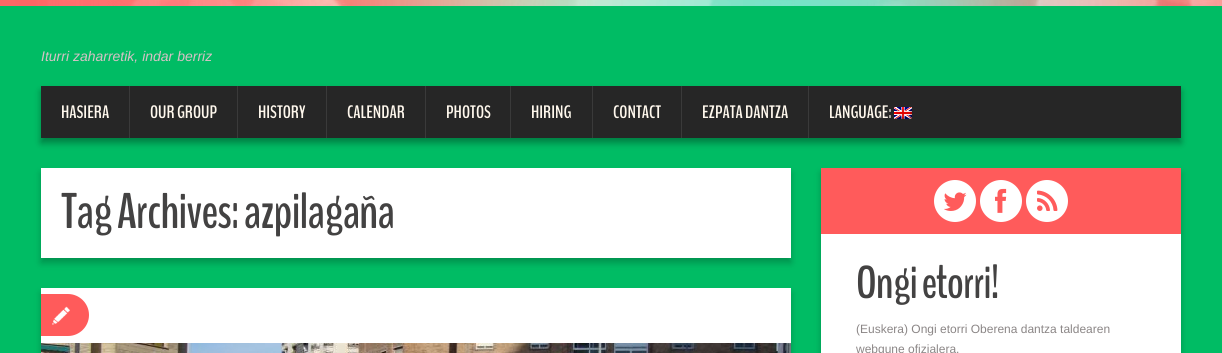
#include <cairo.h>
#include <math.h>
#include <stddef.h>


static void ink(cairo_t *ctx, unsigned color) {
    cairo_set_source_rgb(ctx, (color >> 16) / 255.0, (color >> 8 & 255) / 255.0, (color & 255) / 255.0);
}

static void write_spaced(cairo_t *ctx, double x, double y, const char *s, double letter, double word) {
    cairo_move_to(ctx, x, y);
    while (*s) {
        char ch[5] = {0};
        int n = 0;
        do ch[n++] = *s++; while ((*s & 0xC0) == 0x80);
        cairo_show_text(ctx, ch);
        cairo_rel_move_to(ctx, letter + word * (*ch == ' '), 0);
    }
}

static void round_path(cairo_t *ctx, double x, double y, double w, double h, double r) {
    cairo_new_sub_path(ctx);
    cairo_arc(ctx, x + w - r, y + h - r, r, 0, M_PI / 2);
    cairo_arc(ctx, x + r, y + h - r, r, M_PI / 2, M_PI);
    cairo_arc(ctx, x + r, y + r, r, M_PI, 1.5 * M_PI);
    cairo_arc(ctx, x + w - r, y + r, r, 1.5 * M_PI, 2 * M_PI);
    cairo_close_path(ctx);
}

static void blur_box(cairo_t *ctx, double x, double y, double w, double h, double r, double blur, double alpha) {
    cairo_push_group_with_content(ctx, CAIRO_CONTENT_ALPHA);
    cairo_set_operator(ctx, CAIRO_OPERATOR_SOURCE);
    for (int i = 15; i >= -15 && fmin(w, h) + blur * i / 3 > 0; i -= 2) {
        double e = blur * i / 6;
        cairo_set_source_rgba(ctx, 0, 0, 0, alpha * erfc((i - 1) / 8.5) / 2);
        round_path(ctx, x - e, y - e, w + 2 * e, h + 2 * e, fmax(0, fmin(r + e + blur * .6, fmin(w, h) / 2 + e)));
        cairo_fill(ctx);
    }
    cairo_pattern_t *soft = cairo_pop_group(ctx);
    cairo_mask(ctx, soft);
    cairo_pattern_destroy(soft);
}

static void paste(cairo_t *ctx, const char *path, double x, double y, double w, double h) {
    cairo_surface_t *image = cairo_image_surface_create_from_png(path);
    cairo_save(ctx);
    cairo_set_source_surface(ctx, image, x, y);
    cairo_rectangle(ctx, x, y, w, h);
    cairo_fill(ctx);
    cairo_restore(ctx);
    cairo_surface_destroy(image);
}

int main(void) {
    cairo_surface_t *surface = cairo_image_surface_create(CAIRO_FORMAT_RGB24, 1222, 353);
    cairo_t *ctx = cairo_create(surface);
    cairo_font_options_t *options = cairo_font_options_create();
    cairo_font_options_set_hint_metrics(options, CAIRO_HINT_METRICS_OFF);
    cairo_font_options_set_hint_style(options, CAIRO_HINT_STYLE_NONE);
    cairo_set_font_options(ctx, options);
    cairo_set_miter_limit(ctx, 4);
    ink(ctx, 0x00BC64);
    cairo_paint(ctx);
    paste(ctx, "media/1.png", 0, 0, 1222, 6);
    cairo_select_font_face(ctx, "Liberation Sans", CAIRO_FONT_SLANT_ITALIC, CAIRO_FONT_WEIGHT_NORMAL);
    cairo_set_font_size(ctx, 14);
    ink(ctx, 0xD7C1C6);
    cairo_move_to(ctx, 41, 61);
    cairo_show_text(ctx, "Iturri zaharretik, indar berriz");
    ink(ctx, 0x000000);
    blur_box(ctx, 41, 91, 1140, 52, 0, 3.5, 0.33);
    ink(ctx, 0x262626);
    cairo_rectangle(ctx, 41, 86, 1140, 52);
    cairo_fill(ctx);
    cairo_select_font_face(ctx, "BenchNine", CAIRO_FONT_SLANT_NORMAL, CAIRO_FONT_WEIGHT_BOLD);
    cairo_set_font_size(ctx, 18);
    ink(ctx, 0xFFF8ED);
    cairo_move_to(ctx, 61, 118);
    cairo_show_text(ctx, "HASIERA");
    ink(ctx, 0x3A3A3A);
    cairo_rectangle(ctx, 129, 86, 1, 52);
    cairo_fill(ctx);
    ink(ctx, 0xFFF8ED);
    cairo_move_to(ctx, 150, 118);
    cairo_show_text(ctx, "OUR GROUP");
    ink(ctx, 0x3A3A3A);
    cairo_rectangle(ctx, 237, 86, 1, 52);
    cairo_fill(ctx);
    ink(ctx, 0xFFF8ED);
    cairo_move_to(ctx, 258, 118);
    cairo_show_text(ctx, "HISTORY");
    ink(ctx, 0x3A3A3A);
    cairo_rectangle(ctx, 326, 86, 1, 52);
    cairo_fill(ctx);
    ink(ctx, 0xFFF8ED);
    cairo_move_to(ctx, 347, 118);
    cairo_show_text(ctx, "CALENDAR");
    ink(ctx, 0x3A3A3A);
    cairo_rectangle(ctx, 425, 86, 1, 52);
    cairo_fill(ctx);
    ink(ctx, 0xFFF8ED);
    cairo_move_to(ctx, 446, 118);
    cairo_show_text(ctx, "PHOTOS");
    ink(ctx, 0x3A3A3A);
    cairo_rectangle(ctx, 510, 86, 1, 52);
    cairo_fill(ctx);
    ink(ctx, 0xFFF8ED);
    cairo_move_to(ctx, 531, 118);
    cairo_show_text(ctx, "HIRING");
    ink(ctx, 0x3A3A3A);
    cairo_rectangle(ctx, 592, 86, 1, 52);
    cairo_fill(ctx);
    ink(ctx, 0xFFF8ED);
    cairo_move_to(ctx, 613, 118);
    cairo_show_text(ctx, "CONTACT");
    ink(ctx, 0x3A3A3A);
    cairo_rectangle(ctx, 681, 86, 1, 52);
    cairo_fill(ctx);
    ink(ctx, 0xFFF8ED);
    cairo_move_to(ctx, 702, 118);
    cairo_show_text(ctx, "EZPATA DANTZA");
    ink(ctx, 0x3A3A3A);
    cairo_rectangle(ctx, 808, 86, 1, 52);
    cairo_fill(ctx);
    ink(ctx, 0xFFF8ED);
    cairo_move_to(ctx, 829, 118);
    cairo_show_text(ctx, "LANGUAGE:");
    paste(ctx, "media/2.png", 894, 107, 18, 12);
    ink(ctx, 0x000000);
    blur_box(ctx, 41, 173, 750, 90, 0, 3.5, 0.22);
    ink(ctx, 0xFFFFFF);
    cairo_rectangle(ctx, 41, 168, 750, 90);
    cairo_fill(ctx);
    cairo_set_font_size(ctx, 50);
    ink(ctx, 0x434242);
    write_spaced(ctx, 61, 228, "Tag Archives: azpilagaña", -1, 0);
    ink(ctx, 0x000000);
    blur_box(ctx, 41, 293, 750, 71, 0, 3.5, 0.22);
    ink(ctx, 0xFFFFFF);
    cairo_rectangle(ctx, 41, 288, 750, 55);
    cairo_fill(ctx);
    ink(ctx, 0xFF5B5B);
    cairo_new_path(ctx);
    cairo_move_to(ctx, 41, 294);
    cairo_line_to(ctx, 68, 294);
    cairo_curve_to(ctx, 79.5, 294, 89, 303.5, 89, 315);
    cairo_curve_to(ctx, 89, 326.5, 79.5, 336, 68, 336);
    cairo_line_to(ctx, 41, 336);
    cairo_close_path(ctx);
    cairo_fill(ctx);
    paste(ctx, "media/3.png", 52, 306, 18, 19);
    paste(ctx, "media/4.png", 41, 343, 750, 10);
    ink(ctx, 0x000000);
    blur_box(ctx, 821, 173, 360, 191, 0, 3.5, 0.22);
    ink(ctx, 0xFF5B5B);
    cairo_rectangle(ctx, 821, 168, 360, 66);
    cairo_fill(ctx);
    ink(ctx, 0xFFFFFF);
    cairo_arc(ctx, 955, 201, 21, 0, 2 * M_PI);
    cairo_fill(ctx);
    paste(ctx, "media/5.png", 944, 192, 23, 19);
    cairo_arc(ctx, 1001, 201, 21, 0, 2 * M_PI);
    cairo_fill(ctx);
    paste(ctx, "media/6.png", 995, 188, 12, 25);
    cairo_arc(ctx, 1047, 201, 21, 0, 2 * M_PI);
    cairo_fill(ctx);
    paste(ctx, "media/7.png", 1037, 190, 21, 21);
    cairo_rectangle(ctx, 821, 234, 360, 119);
    cairo_fill(ctx);
    cairo_set_font_size(ctx, 46);
    ink(ctx, 0x434242);
    write_spaced(ctx, 856, 298, "Ongi etorri!", -1, 0);
    cairo_select_font_face(ctx, "Liberation Sans", CAIRO_FONT_SLANT_NORMAL, CAIRO_FONT_WEIGHT_NORMAL);
    cairo_set_font_size(ctx, 12);
    ink(ctx, 0x8B8686);
    cairo_move_to(ctx, 856, 333);
    cairo_show_text(ctx, "(Euskera) Ongi etorri Oberena dantza taldearen");
    cairo_move_to(ctx, 856, 353);
    cairo_show_text(ctx, "webgune ofizialera.");
    cairo_surface_write_to_png(surface, "image.png");
    cairo_font_options_destroy(options);
    cairo_destroy(ctx);
    cairo_surface_destroy(surface);
    return 0;
}
